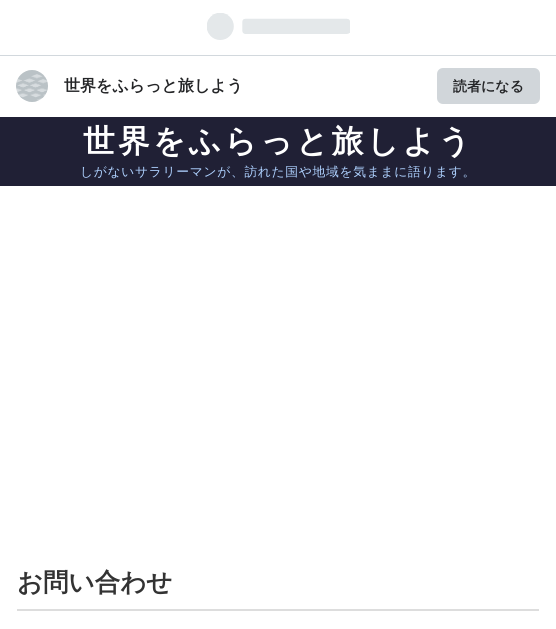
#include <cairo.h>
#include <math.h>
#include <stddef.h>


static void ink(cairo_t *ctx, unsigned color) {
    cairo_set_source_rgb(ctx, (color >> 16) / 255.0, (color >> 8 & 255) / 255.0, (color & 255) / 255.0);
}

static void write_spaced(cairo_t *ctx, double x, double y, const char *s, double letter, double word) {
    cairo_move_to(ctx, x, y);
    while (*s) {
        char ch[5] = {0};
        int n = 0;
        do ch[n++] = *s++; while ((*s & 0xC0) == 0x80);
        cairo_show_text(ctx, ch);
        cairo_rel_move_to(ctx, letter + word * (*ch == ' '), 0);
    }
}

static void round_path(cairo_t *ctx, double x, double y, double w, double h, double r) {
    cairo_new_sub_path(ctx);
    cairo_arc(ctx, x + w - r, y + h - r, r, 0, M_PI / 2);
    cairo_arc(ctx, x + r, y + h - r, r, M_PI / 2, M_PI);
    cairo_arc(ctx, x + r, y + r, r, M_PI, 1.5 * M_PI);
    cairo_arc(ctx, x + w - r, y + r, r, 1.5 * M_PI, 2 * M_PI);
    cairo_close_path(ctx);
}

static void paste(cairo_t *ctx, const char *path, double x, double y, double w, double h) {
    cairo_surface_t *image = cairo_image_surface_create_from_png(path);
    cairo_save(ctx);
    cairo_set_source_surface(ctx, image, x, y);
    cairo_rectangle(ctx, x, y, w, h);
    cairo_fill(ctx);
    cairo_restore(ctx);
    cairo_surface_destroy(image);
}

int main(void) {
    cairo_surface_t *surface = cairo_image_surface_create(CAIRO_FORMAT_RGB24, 556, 629);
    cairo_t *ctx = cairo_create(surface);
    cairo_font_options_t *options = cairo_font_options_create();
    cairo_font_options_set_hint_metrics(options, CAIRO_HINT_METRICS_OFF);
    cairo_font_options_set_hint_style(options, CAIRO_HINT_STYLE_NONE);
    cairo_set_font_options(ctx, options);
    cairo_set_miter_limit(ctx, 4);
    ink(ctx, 0xFFFFFF);
    cairo_paint(ctx);
    ink(ctx, 0xD2D8DD);
    cairo_rectangle(ctx, 0, 55, 556, 1);
    cairo_fill(ctx);
    paste(ctx, "media/1.png", 207, 13, 143, 27);
    paste(ctx, "media/2.png", 16, 70, 32, 32);
    cairo_select_font_face(ctx, "WenQuanYi Zen Hei", CAIRO_FONT_SLANT_NORMAL, CAIRO_FONT_WEIGHT_BOLD);
    cairo_set_font_size(ctx, 16);
    ink(ctx, 0x242527);
    cairo_move_to(ctx, 64, 91);
    cairo_show_text(ctx, "世界をふらっと旅しよう");
    ink(ctx, 0xD1D6DA);
    round_path(ctx, 437, 68, 103, 36, 6);
    cairo_fill(ctx);
    cairo_set_font_size(ctx, 14);
    ink(ctx, 0x242527);
    cairo_move_to(ctx, 453, 91);
    cairo_show_text(ctx, "読者になる");
    ink(ctx, 0x202035);
    cairo_rectangle(ctx, 0, 117, 556, 69);
    cairo_fill(ctx);
    cairo_set_font_size(ctx, 31.75);
    ink(ctx, 0xFFFFFF);
    write_spaced(ctx, 83, 152, "世界をふらっと旅しよう", 3.25, 0);
    cairo_select_font_face(ctx, "WenQuanYi Zen Hei Medium", CAIRO_FONT_SLANT_NORMAL, CAIRO_FONT_WEIGHT_NORMAL);
    cairo_set_font_size(ctx, 12.8);
    ink(ctx, 0xAED1FF);
    write_spaced(ctx, 80, 176, "しがないサラリーマンが、訪れた国や地域を気ままに語ります。", 0.65, 0);
    ink(ctx, 0xDDDDDD);
    cairo_rectangle(ctx, 17, 609, 522, 2);
    cairo_fill(ctx);
    cairo_select_font_face(ctx, "WenQuanYi Zen Hei", CAIRO_FONT_SLANT_NORMAL, CAIRO_FONT_WEIGHT_BOLD);
    cairo_set_font_size(ctx, 25.5);
    ink(ctx, 0x333333);
    cairo_move_to(ctx, 17, 591);
    cairo_show_text(ctx, "お問い合わせ");
    cairo_surface_write_to_png(surface, "image.png");
    cairo_font_options_destroy(options);
    cairo_destroy(ctx);
    cairo_surface_destroy(surface);
    return 0;
}
